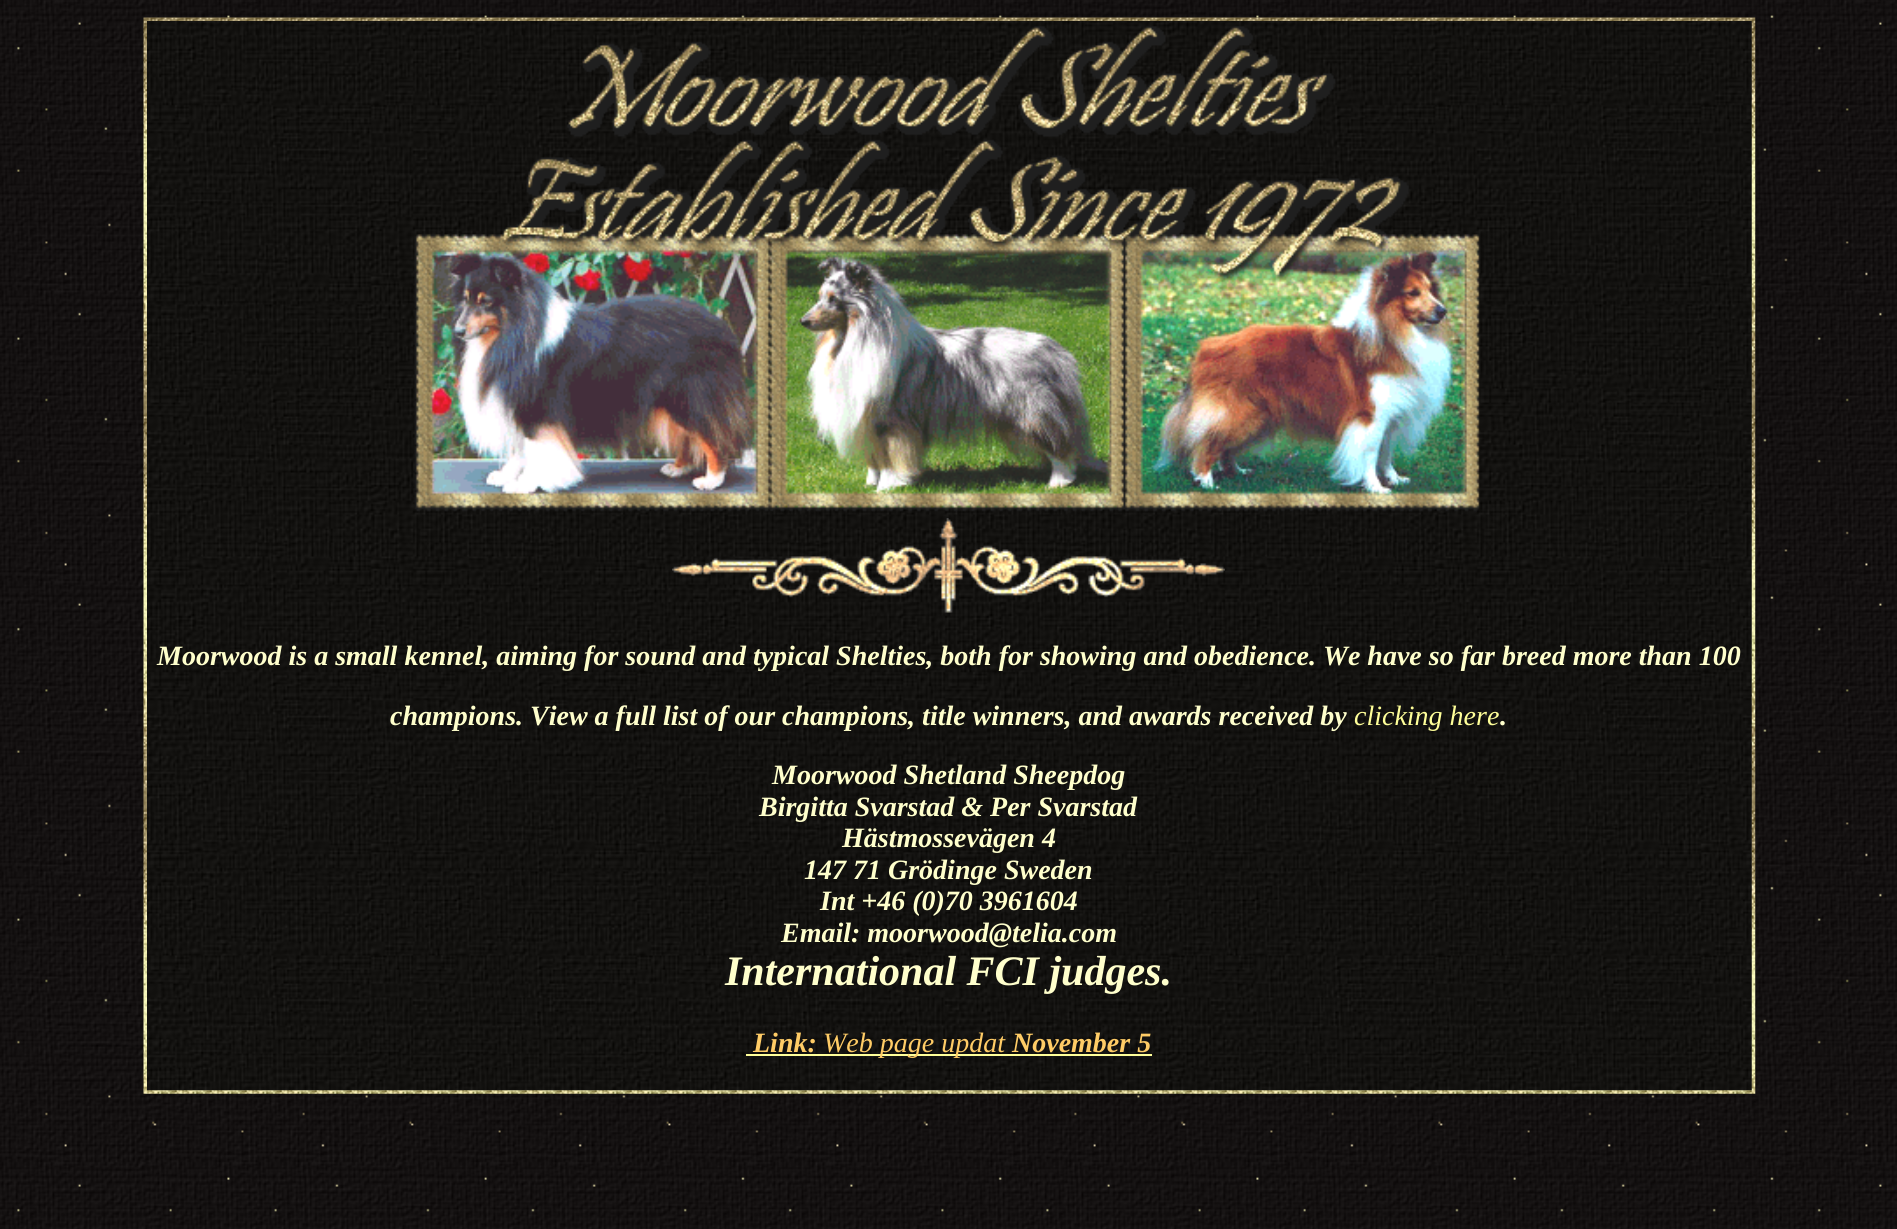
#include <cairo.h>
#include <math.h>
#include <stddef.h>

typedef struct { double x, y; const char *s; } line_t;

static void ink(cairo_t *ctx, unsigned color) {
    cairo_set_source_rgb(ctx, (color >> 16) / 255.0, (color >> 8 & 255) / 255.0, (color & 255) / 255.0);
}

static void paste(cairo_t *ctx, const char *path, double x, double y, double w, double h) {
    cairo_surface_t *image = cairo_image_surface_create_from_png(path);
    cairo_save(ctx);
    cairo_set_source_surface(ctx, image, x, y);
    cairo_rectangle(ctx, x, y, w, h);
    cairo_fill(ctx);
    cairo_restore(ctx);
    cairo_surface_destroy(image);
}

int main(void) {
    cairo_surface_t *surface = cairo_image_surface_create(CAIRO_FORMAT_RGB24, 1897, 1229);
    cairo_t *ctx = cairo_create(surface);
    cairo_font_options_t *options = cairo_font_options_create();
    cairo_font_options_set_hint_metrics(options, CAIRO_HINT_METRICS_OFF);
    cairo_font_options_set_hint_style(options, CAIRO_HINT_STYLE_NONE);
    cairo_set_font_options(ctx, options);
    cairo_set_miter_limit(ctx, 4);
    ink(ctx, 0xFFFFFF);
    cairo_paint(ctx);
    paste(ctx, "media/1.png", 0, 0, 1897, 1229);
    paste(ctx, "media/2.png", 143, 17, 1613, 1077);
    paste(ctx, "media/3.png", 147, 21, 1605, 1070);
    paste(ctx, "media/4.png", 414, 26, 1066, 486);
    paste(ctx, "media/5.png", 672, 518, 553, 95);
    cairo_select_font_face(ctx, "Liberation Serif", CAIRO_FONT_SLANT_ITALIC, CAIRO_FONT_WEIGHT_BOLD);
    cairo_set_font_size(ctx, 28);
    ink(ctx, 0xFFFFCC);
    cairo_move_to(ctx, 157, 665);
    cairo_show_text(ctx, "Moorwood is a small kennel, aiming for sound and typical Shelties, both for showing and obedience. We have so far breed more than 100");
    cairo_move_to(ctx, 390, 725);
    cairo_show_text(ctx, "champions. View a full list of our champions, title winners, and awards received by");
    cairo_select_font_face(ctx, "Liberation Serif", CAIRO_FONT_SLANT_ITALIC, CAIRO_FONT_WEIGHT_NORMAL);
    ink(ctx, 0xFFFF99);
    cairo_move_to(ctx, 1354, 725);
    cairo_show_text(ctx, "clicking here");
    cairo_select_font_face(ctx, "Liberation Serif", CAIRO_FONT_SLANT_ITALIC, CAIRO_FONT_WEIGHT_BOLD);
    ink(ctx, 0xFFFFCC);
    {
        static const line_t items[] = {
            {1500, 725, "."},
            {772, 784, "Moorwood Shetland Sheepdog"},
            {759, 816, "Birgitta Svarstad & Per Svarstad"},
            {842, 847, "Hästmossevägen 4"},
            {804, 879, "147 71 Grödinge Sweden"},
            {820, 910, "Int +46 (0)70 3961604"},
            {781, 942, "Email: moorwood@telia.com"},
        };
        for (size_t i = 0; i < sizeof items / sizeof *items; i++) {
            cairo_move_to(ctx, items[i].x, items[i].y);
            cairo_show_text(ctx, items[i].s);
        }
    }
    cairo_set_font_size(ctx, 42);
    cairo_move_to(ctx, 725, 985);
    cairo_show_text(ctx, "International FCI judges.");
    cairo_set_font_size(ctx, 28);
    ink(ctx, 0xFFCC66);
    cairo_move_to(ctx, 753, 1052);
    cairo_show_text(ctx, "Link:");
    ink(ctx, 0xFFFF99);
    cairo_rectangle(ctx, 746, 1054, 259, 2);
    cairo_fill(ctx);
    cairo_select_font_face(ctx, "Liberation Serif", CAIRO_FONT_SLANT_ITALIC, CAIRO_FONT_WEIGHT_NORMAL);
    ink(ctx, 0xFFCC66);
    cairo_move_to(ctx, 823, 1052);
    cairo_show_text(ctx, "Web page updat");
    ink(ctx, 0xFFFF99);
    cairo_rectangle(ctx, 1005, 1054, 147, 2);
    cairo_fill(ctx);
    cairo_select_font_face(ctx, "Liberation Serif", CAIRO_FONT_SLANT_ITALIC, CAIRO_FONT_WEIGHT_BOLD);
    ink(ctx, 0xFFCC66);
    cairo_move_to(ctx, 1012, 1052);
    cairo_show_text(ctx, "November 5");
    cairo_surface_write_to_png(surface, "image.png");
    cairo_font_options_destroy(options);
    cairo_destroy(ctx);
    cairo_surface_destroy(surface);
    return 0;
}
